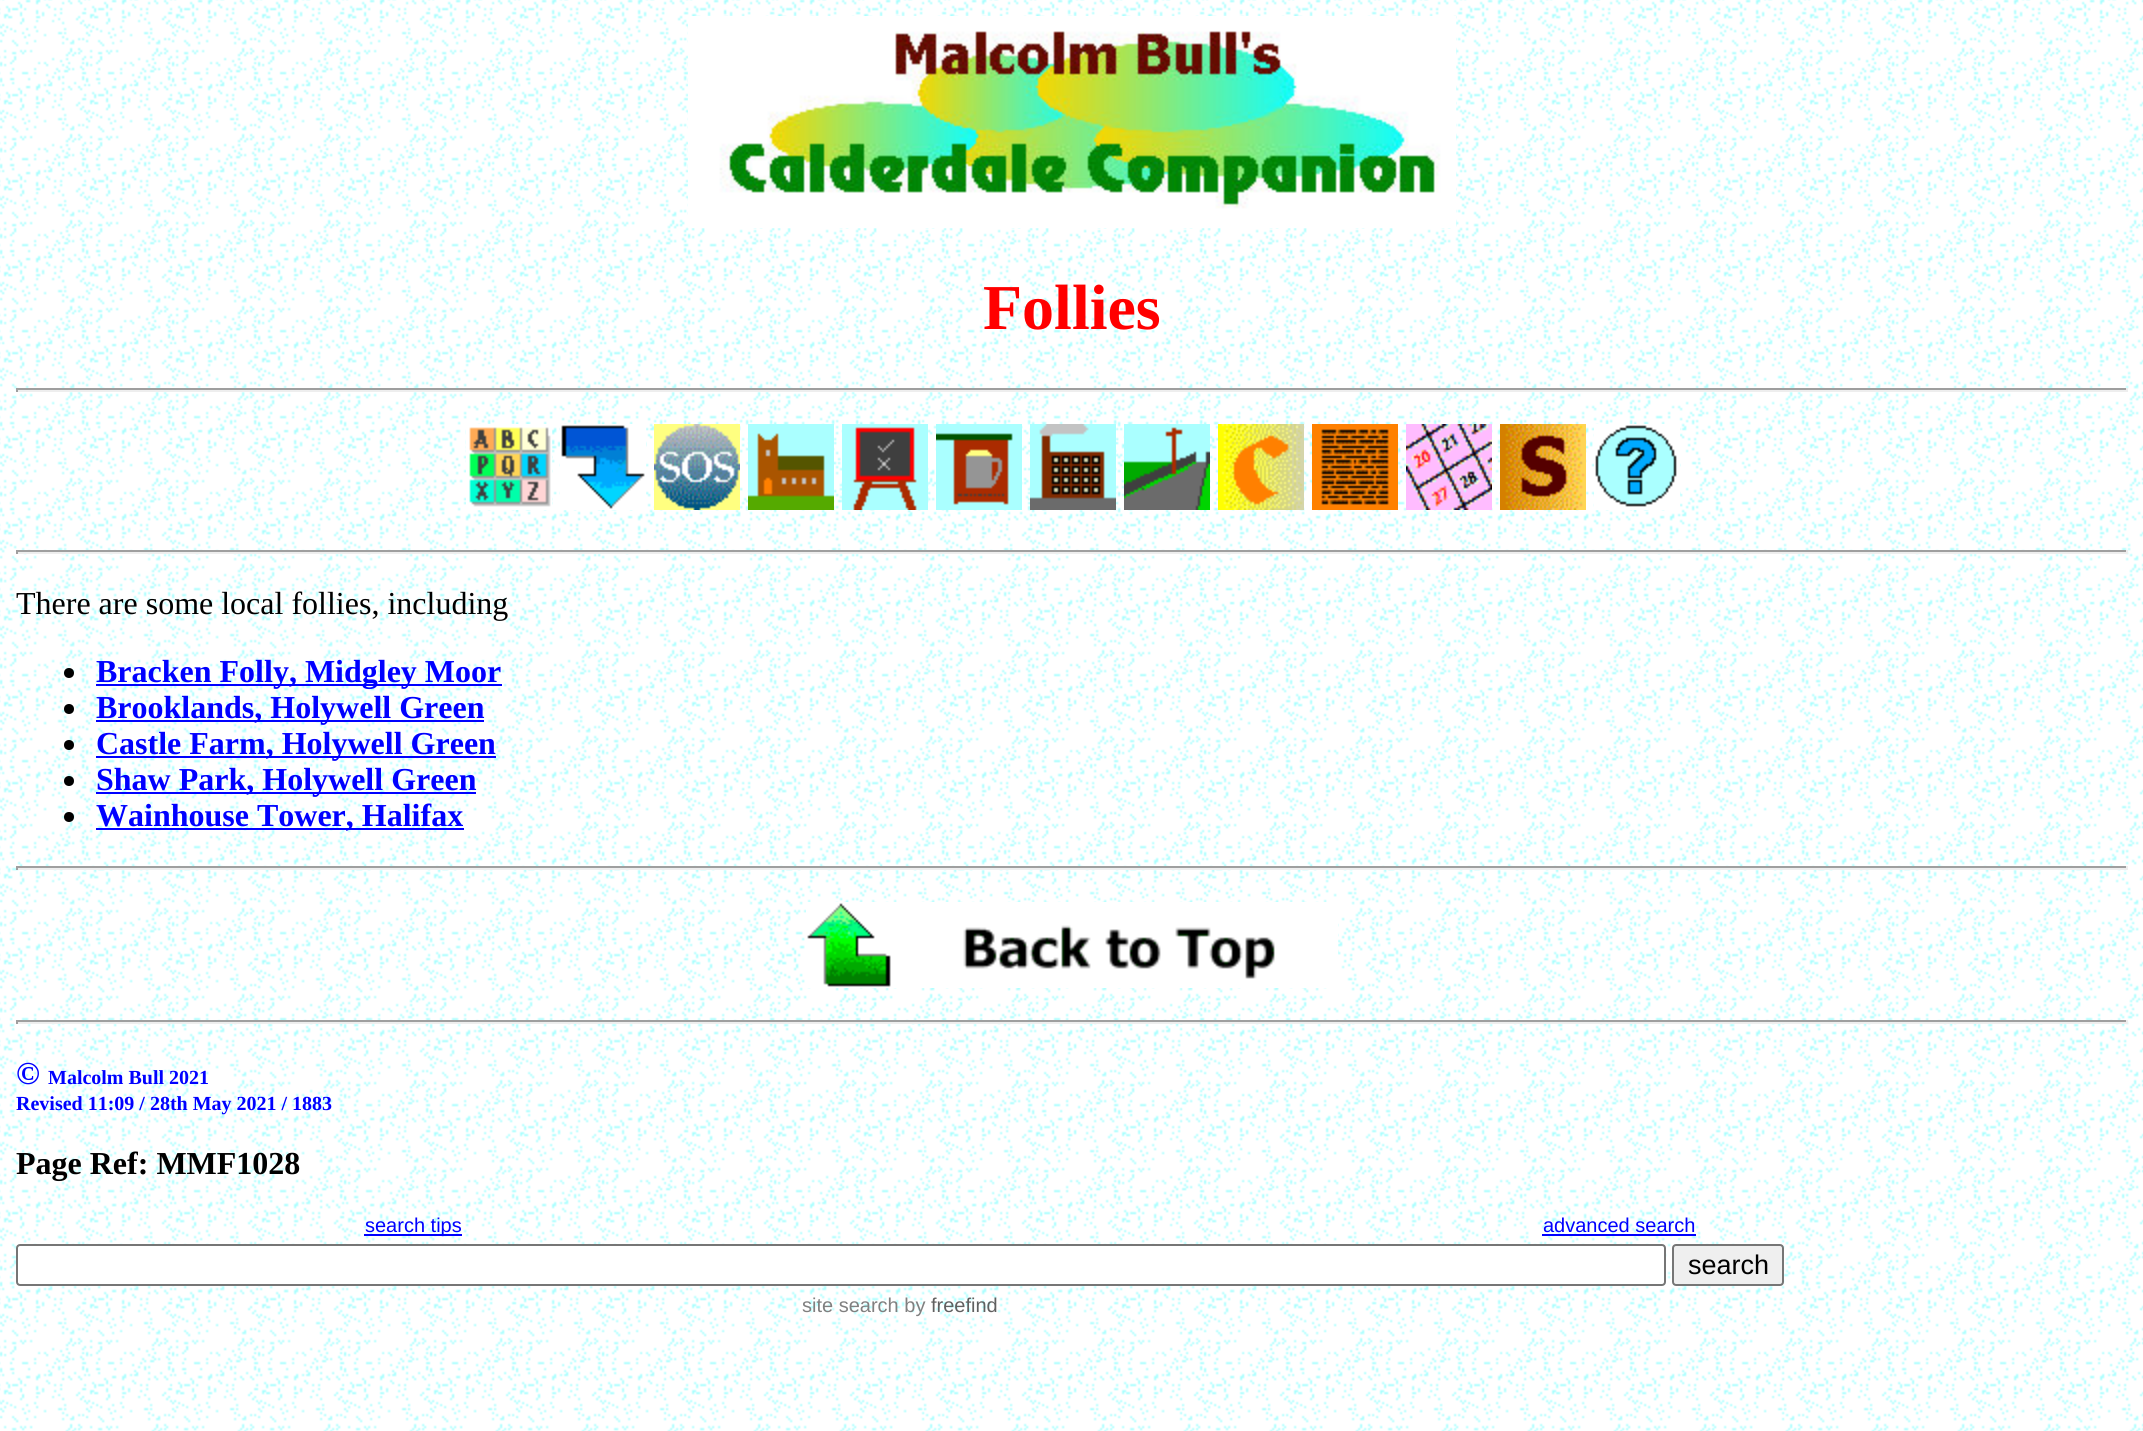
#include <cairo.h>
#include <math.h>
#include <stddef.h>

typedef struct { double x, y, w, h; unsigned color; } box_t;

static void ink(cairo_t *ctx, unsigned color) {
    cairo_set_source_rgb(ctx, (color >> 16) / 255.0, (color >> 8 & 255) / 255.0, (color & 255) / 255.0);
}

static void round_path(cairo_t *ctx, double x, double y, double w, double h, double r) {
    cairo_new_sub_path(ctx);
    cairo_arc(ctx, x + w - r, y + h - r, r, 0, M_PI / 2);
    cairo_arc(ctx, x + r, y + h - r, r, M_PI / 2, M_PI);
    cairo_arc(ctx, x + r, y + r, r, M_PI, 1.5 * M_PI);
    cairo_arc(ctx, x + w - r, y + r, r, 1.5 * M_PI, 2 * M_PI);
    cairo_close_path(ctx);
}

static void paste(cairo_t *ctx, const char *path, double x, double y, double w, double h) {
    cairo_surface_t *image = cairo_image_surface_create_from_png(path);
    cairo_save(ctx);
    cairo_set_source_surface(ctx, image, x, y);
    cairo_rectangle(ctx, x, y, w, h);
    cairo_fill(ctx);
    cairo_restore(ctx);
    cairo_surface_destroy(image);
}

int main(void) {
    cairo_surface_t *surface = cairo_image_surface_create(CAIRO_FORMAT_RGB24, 2143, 1431);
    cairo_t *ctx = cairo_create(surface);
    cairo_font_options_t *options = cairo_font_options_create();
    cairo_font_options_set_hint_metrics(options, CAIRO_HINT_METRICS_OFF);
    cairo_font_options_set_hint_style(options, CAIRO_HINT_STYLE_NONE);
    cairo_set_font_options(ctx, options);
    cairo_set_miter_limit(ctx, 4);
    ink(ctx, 0xFFFFFF);
    cairo_paint(ctx);
    paste(ctx, "media/1.png", 0, 0, 2143, 1431);
    paste(ctx, "media/2.png", 688, 16, 768, 212);
    cairo_select_font_face(ctx, "Liberation Serif", CAIRO_FONT_SLANT_NORMAL, CAIRO_FONT_WEIGHT_BOLD);
    cairo_set_font_size(ctx, 64);
    ink(ctx, 0xFF0000);
    cairo_move_to(ctx, 983, 329);
    cairo_show_text(ctx, "Follies");
    {
        static const box_t items[] = {
            {16, 388, 2112, 2, 0x9F9F9F},
            {2126, 388, 2, 4, 0xEEEEEE},
            {16, 390, 2112, 2, 0xEEEEEE},
            {16, 388, 2, 4, 0x9F9F9F},
        };
        for (size_t i = 0; i < sizeof items / sizeof *items; i++) {
            ink(ctx, items[i].color);
            cairo_rectangle(ctx, items[i].x, items[i].y, items[i].w, items[i].h);
            cairo_fill(ctx);
        }
    }
    paste(ctx, "media/3.png", 466, 424, 86, 86);
    paste(ctx, "media/4.png", 560, 424, 86, 86);
    paste(ctx, "media/5.png", 654, 424, 86, 86);
    paste(ctx, "media/6.png", 748, 424, 86, 86);
    paste(ctx, "media/7.png", 842, 424, 86, 86);
    paste(ctx, "media/8.png", 936, 424, 86, 86);
    paste(ctx, "media/9.png", 1030, 424, 86, 86);
    paste(ctx, "media/10.png", 1124, 424, 86, 86);
    paste(ctx, "media/11.png", 1218, 424, 86, 86);
    paste(ctx, "media/12.png", 1312, 424, 86, 86);
    paste(ctx, "media/13.png", 1406, 424, 86, 86);
    paste(ctx, "media/14.png", 1500, 424, 86, 86);
    paste(ctx, "media/15.png", 1594, 424, 86, 86);
    {
        static const box_t items[] = {
            {16, 550, 2112, 2, 0x9F9F9F},
            {2126, 550, 2, 4, 0xEEEEEE},
            {16, 552, 2112, 2, 0xEEEEEE},
            {16, 550, 2, 4, 0x9F9F9F},
        };
        for (size_t i = 0; i < sizeof items / sizeof *items; i++) {
            ink(ctx, items[i].color);
            cairo_rectangle(ctx, items[i].x, items[i].y, items[i].w, items[i].h);
            cairo_fill(ctx);
        }
    }
    cairo_select_font_face(ctx, "Liberation Serif", CAIRO_FONT_SLANT_NORMAL, CAIRO_FONT_WEIGHT_NORMAL);
    cairo_set_font_size(ctx, 32);
    ink(ctx, 0x000000);
    cairo_move_to(ctx, 16, 614);
    cairo_show_text(ctx, "There are some local follies, including");
    cairo_new_path(ctx);
    cairo_arc(ctx, 69, 673, 5, 0, 2 * M_PI);
    cairo_fill(ctx);
    ink(ctx, 0x0000FF);
    cairo_rectangle(ctx, 96, 684, 406, 2);
    cairo_fill(ctx);
    cairo_select_font_face(ctx, "Liberation Serif", CAIRO_FONT_SLANT_NORMAL, CAIRO_FONT_WEIGHT_BOLD);
    cairo_move_to(ctx, 96, 682);
    cairo_show_text(ctx, "Bracken Folly, Midgley Moor");
    ink(ctx, 0x000000);
    cairo_new_path(ctx);
    cairo_arc(ctx, 69, 709, 5, 0, 2 * M_PI);
    cairo_fill(ctx);
    ink(ctx, 0x0000FF);
    cairo_rectangle(ctx, 96, 720, 388, 2);
    cairo_fill(ctx);
    cairo_move_to(ctx, 96, 718);
    cairo_show_text(ctx, "Brooklands, Holywell Green");
    ink(ctx, 0x000000);
    cairo_new_path(ctx);
    cairo_arc(ctx, 69, 745, 5, 0, 2 * M_PI);
    cairo_fill(ctx);
    ink(ctx, 0x0000FF);
    cairo_rectangle(ctx, 96, 756, 400, 2);
    cairo_fill(ctx);
    cairo_move_to(ctx, 96, 754);
    cairo_show_text(ctx, "Castle Farm, Holywell Green");
    ink(ctx, 0x000000);
    cairo_new_path(ctx);
    cairo_arc(ctx, 69, 781, 5, 0, 2 * M_PI);
    cairo_fill(ctx);
    ink(ctx, 0x0000FF);
    cairo_rectangle(ctx, 96, 792, 380, 2);
    cairo_fill(ctx);
    cairo_move_to(ctx, 96, 790);
    cairo_show_text(ctx, "Shaw Park, Holywell Green");
    ink(ctx, 0x000000);
    cairo_new_path(ctx);
    cairo_arc(ctx, 69, 817, 5, 0, 2 * M_PI);
    cairo_fill(ctx);
    ink(ctx, 0x0000FF);
    cairo_rectangle(ctx, 96, 828, 368, 2);
    cairo_fill(ctx);
    cairo_move_to(ctx, 96, 826);
    cairo_show_text(ctx, "Wainhouse Tower, Halifax");
    {
        static const box_t items[] = {
            {16, 866, 2112, 2, 0x9F9F9F},
            {2126, 866, 2, 4, 0xEEEEEE},
            {16, 868, 2112, 2, 0xEEEEEE},
            {16, 866, 2, 4, 0x9F9F9F},
        };
        for (size_t i = 0; i < sizeof items / sizeof *items; i++) {
            ink(ctx, items[i].color);
            cairo_rectangle(ctx, items[i].x, items[i].y, items[i].w, items[i].h);
            cairo_fill(ctx);
        }
    }
    paste(ctx, "media/16.png", 806, 902, 532, 86);
    {
        static const box_t items[] = {
            {16, 1020, 2112, 2, 0x9F9F9F},
            {2126, 1020, 2, 4, 0xEEEEEE},
            {16, 1022, 2112, 2, 0xEEEEEE},
            {16, 1020, 2, 4, 0x9F9F9F},
        };
        for (size_t i = 0; i < sizeof items / sizeof *items; i++) {
            ink(ctx, items[i].color);
            cairo_rectangle(ctx, items[i].x, items[i].y, items[i].w, items[i].h);
            cairo_fill(ctx);
        }
    }
    ink(ctx, 0x0000FF);
    cairo_move_to(ctx, 16, 1084);
    cairo_show_text(ctx, "©");
    cairo_set_font_size(ctx, 20);
    cairo_move_to(ctx, 48, 1084);
    cairo_show_text(ctx, "Malcolm Bull 2021");
    cairo_move_to(ctx, 16, 1110);
    cairo_show_text(ctx, "Revised 11:09 / 28th May 2021 / 1883");
    cairo_set_font_size(ctx, 32);
    ink(ctx, 0x000000);
    cairo_move_to(ctx, 16, 1174);
    cairo_show_text(ctx, "Page Ref: MMF1028");
    ink(ctx, 0x0000FF);
    cairo_rectangle(ctx, 364, 1234, 98, 2);
    cairo_fill(ctx);
    cairo_select_font_face(ctx, "Liberation Sans", CAIRO_FONT_SLANT_NORMAL, CAIRO_FONT_WEIGHT_NORMAL);
    cairo_set_font_size(ctx, 20);
    cairo_move_to(ctx, 365, 1232);
    cairo_show_text(ctx, "search tips");
    cairo_move_to(ctx, 1543, 1232);
    cairo_show_text(ctx, "advanced search");
    cairo_rectangle(ctx, 1542, 1234, 154, 2);
    cairo_fill(ctx);
    ink(ctx, 0xFFFFFF);
    round_path(ctx, 17, 1245, 1648, 40, 3);
    cairo_fill_preserve(ctx);
    ink(ctx, 0x767676);
    cairo_stroke(ctx);
    ink(ctx, 0xEFEFEF);
    round_path(ctx, 1673, 1245, 110, 40, 3);
    cairo_fill_preserve(ctx);
    ink(ctx, 0x767676);
    cairo_stroke(ctx);
    cairo_set_font_size(ctx, 27);
    ink(ctx, 0x000000);
    cairo_move_to(ctx, 1688, 1274);
    cairo_show_text(ctx, "search");
    cairo_set_font_size(ctx, 20);
    ink(ctx, 0x808080);
    cairo_move_to(ctx, 802, 1312);
    cairo_show_text(ctx, "site search by");
    ink(ctx, 0x606060);
    cairo_move_to(ctx, 931, 1312);
    cairo_show_text(ctx, "freefind");
    cairo_surface_write_to_png(surface, "image.png");
    cairo_font_options_destroy(options);
    cairo_destroy(ctx);
    cairo_surface_destroy(surface);
    return 0;
}
